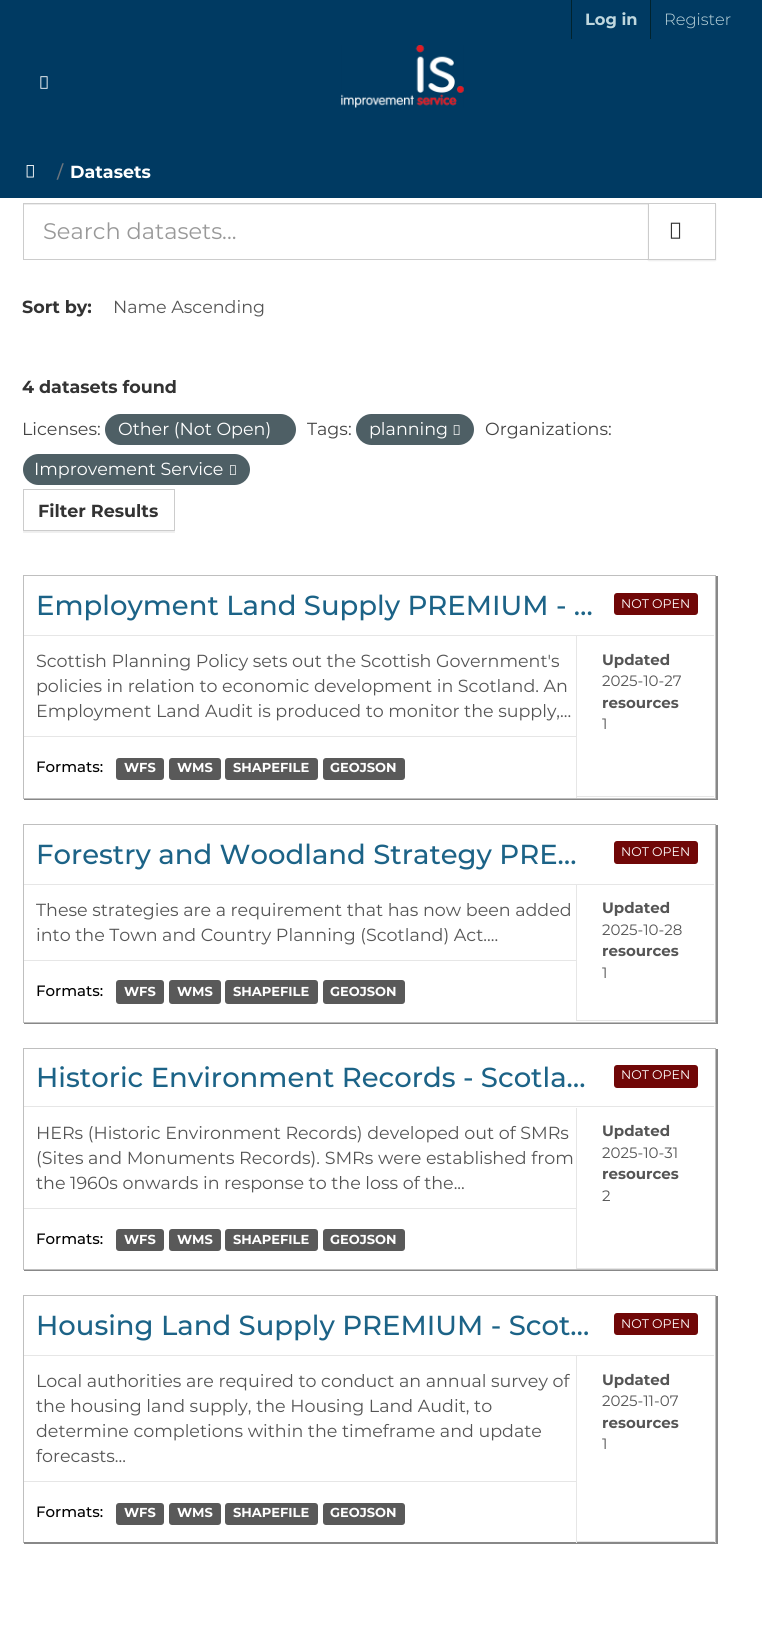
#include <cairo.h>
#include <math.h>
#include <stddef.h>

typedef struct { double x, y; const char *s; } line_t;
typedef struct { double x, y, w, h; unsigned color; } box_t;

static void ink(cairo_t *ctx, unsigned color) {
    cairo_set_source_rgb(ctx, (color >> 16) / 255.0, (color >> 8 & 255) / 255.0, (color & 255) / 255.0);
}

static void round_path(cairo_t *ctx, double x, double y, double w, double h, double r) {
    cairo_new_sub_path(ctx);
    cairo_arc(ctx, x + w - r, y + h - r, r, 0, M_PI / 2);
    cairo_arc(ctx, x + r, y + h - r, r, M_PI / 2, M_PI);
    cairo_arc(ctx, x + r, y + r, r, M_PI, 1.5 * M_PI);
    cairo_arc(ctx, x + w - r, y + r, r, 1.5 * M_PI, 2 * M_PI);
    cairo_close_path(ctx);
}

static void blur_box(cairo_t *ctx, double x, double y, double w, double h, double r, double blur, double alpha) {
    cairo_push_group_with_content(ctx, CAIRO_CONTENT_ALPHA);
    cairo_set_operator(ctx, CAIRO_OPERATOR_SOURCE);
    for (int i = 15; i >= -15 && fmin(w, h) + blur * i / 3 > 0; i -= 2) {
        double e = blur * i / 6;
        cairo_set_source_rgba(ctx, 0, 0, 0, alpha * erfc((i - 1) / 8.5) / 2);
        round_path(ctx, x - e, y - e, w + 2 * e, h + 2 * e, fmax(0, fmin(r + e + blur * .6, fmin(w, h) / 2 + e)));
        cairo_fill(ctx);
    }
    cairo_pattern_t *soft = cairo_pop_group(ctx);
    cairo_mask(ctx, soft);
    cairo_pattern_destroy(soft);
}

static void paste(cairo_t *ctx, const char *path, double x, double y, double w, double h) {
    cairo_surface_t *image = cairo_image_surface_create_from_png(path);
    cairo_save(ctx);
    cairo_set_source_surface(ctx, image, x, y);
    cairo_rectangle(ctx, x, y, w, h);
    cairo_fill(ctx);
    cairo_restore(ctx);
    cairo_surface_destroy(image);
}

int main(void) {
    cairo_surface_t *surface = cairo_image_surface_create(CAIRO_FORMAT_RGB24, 762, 1626);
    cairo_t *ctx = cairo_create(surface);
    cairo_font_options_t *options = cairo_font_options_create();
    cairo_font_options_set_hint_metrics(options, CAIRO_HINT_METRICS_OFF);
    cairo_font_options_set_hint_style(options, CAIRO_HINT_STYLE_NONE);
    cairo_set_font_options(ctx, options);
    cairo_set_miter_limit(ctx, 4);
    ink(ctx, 0x003A62);
    cairo_paint(ctx);
    ink(ctx, 0x00232E);
    cairo_rectangle(ctx, 571, 0, 1, 39);
    cairo_fill(ctx);
    cairo_select_font_face(ctx, "Montserrat", CAIRO_FONT_SLANT_NORMAL, CAIRO_FONT_WEIGHT_BOLD);
    cairo_set_font_size(ctx, 16.25);
    ink(ctx, 0xBFD7DE);
    cairo_move_to(ctx, 585, 25);
    cairo_show_text(ctx, "Log in");
    ink(ctx, 0x00232E);
    cairo_rectangle(ctx, 650, 0, 1, 39);
    cairo_fill(ctx);
    cairo_select_font_face(ctx, "Montserrat Light", CAIRO_FONT_SLANT_NORMAL, CAIRO_FONT_WEIGHT_NORMAL);
    ink(ctx, 0xBFD7DE);
    cairo_move_to(ctx, 664, 25);
    cairo_show_text(ctx, "Register");
    paste(ctx, "media/1.png", 40, 76, 8, 13);
    paste(ctx, "media/2.png", 341, 45, 123, 63);
    paste(ctx, "media/3.png", 26, 165, 8, 13);
    cairo_select_font_face(ctx, "Montserrat Medium", CAIRO_FONT_SLANT_NORMAL, CAIRO_FONT_WEIGHT_NORMAL);
    cairo_set_font_size(ctx, 17.5);
    ink(ctx, 0x6C757D);
    cairo_move_to(ctx, 57, 178);
    cairo_show_text(ctx, "/");
    cairo_select_font_face(ctx, "Montserrat", CAIRO_FONT_SLANT_NORMAL, CAIRO_FONT_WEIGHT_BOLD);
    ink(ctx, 0xFFFFFF);
    cairo_move_to(ctx, 70, 178);
    cairo_show_text(ctx, "Datasets");
    cairo_rectangle(ctx, -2.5, 200.5, 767, 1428);
    cairo_set_line_width(ctx, 5);
    cairo_stroke(ctx);
    cairo_rectangle(ctx, 0, 203, 762, 1423);
    cairo_fill(ctx);
    ink(ctx, 0xECECEC);
    cairo_rectangle(ctx, 24, 204, 624, 1);
    cairo_fill(ctx);
    cairo_rectangle(ctx, 23.5, 203.5, 625, 56);
    ink(ctx, 0xCCCCCC);
    cairo_set_line_width(ctx, 1);
    cairo_stroke(ctx);
    cairo_select_font_face(ctx, "Montserrat", CAIRO_FONT_SLANT_NORMAL, CAIRO_FONT_WEIGHT_NORMAL);
    cairo_set_font_size(ctx, 22.5);
    ink(ctx, 0x999999);
    cairo_move_to(ctx, 43, 239);
    cairo_show_text(ctx, "Search datasets...");
    ink(ctx, 0x000000);
    blur_box(ctx, 648, 204, 68, 57, 0, 0.5, 0.07);
    ink(ctx, 0xFFFFFF);
    cairo_rectangle(ctx, 648.5, 203.5, 67, 56);
    cairo_fill_preserve(ctx);
    ink(ctx, 0xCCCCCC);
    cairo_stroke(ctx);
    paste(ctx, "media/4.png", 670, 222, 11, 17);
    cairo_select_font_face(ctx, "Montserrat", CAIRO_FONT_SLANT_NORMAL, CAIRO_FONT_WEIGHT_BOLD);
    cairo_set_font_size(ctx, 17.5);
    ink(ctx, 0x333333);
    cairo_move_to(ctx, 22, 313);
    cairo_show_text(ctx, "Sort by:");
    cairo_select_font_face(ctx, "Montserrat", CAIRO_FONT_SLANT_NORMAL, CAIRO_FONT_WEIGHT_NORMAL);
    ink(ctx, 0x555555);
    cairo_move_to(ctx, 113, 313);
    cairo_show_text(ctx, "Name Ascending");
    cairo_select_font_face(ctx, "Montserrat", CAIRO_FONT_SLANT_NORMAL, CAIRO_FONT_WEIGHT_BOLD);
    ink(ctx, 0x333333);
    cairo_move_to(ctx, 22, 393);
    cairo_show_text(ctx, "4 datasets found");
    cairo_select_font_face(ctx, "Montserrat", CAIRO_FONT_SLANT_NORMAL, CAIRO_FONT_WEIGHT_NORMAL);
    ink(ctx, 0x444444);
    cairo_move_to(ctx, 22, 435);
    cairo_show_text(ctx, "Licenses:");
    ink(ctx, 0x4E5F65);
    round_path(ctx, 105, 414, 191, 31, 15.5);
    cairo_fill(ctx);
    ink(ctx, 0xFFFFFF);
    cairo_move_to(ctx, 118, 435);
    cairo_show_text(ctx, "Other (Not Open)");
    ink(ctx, 0x444444);
    cairo_move_to(ctx, 307, 435);
    cairo_show_text(ctx, "Tags:");
    ink(ctx, 0x4E5F65);
    round_path(ctx, 356, 414, 118, 31, 15.5);
    cairo_fill(ctx);
    ink(ctx, 0xFFFFFF);
    cairo_move_to(ctx, 369, 435);
    cairo_show_text(ctx, "planning");
    paste(ctx, "media/5.png", 453, 425, 7, 10);
    ink(ctx, 0x444444);
    cairo_move_to(ctx, 485, 435);
    cairo_show_text(ctx, "Organizations:");
    ink(ctx, 0x4E5F65);
    round_path(ctx, 23, 454, 227, 31, 15.5);
    cairo_fill(ctx);
    ink(ctx, 0xFFFFFF);
    cairo_move_to(ctx, 34, 475);
    cairo_show_text(ctx, "Improvement Service");
    paste(ctx, "media/6.png", 230, 465, 6, 10);
    cairo_save(ctx);
    cairo_rectangle(ctx, 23, 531, 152, 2);
    cairo_clip(ctx);
    ink(ctx, 0x000000);
    blur_box(ctx, 23, 490, 152, 43, 0, 0.5, 0.07);
    cairo_restore(ctx);
    cairo_rectangle(ctx, 23.5, 489.5, 151, 41);
    ink(ctx, 0xCCCCCC);
    cairo_stroke(ctx);
    cairo_select_font_face(ctx, "Montserrat", CAIRO_FONT_SLANT_NORMAL, CAIRO_FONT_WEIGHT_BOLD);
    ink(ctx, 0x333333);
    cairo_move_to(ctx, 38, 517);
    cairo_show_text(ctx, "Filter Results");
    ink(ctx, 0x888888);
    cairo_new_path(ctx);
    cairo_move_to(ctx, 24, 799);
    cairo_line_to(ctx, 24, 800);
    cairo_line_to(ctx, 718, 800);
    cairo_line_to(ctx, 718, 576);
    cairo_line_to(ctx, 716, 576);
    cairo_line_to(ctx, 716, 799);
    cairo_close_path(ctx);
    cairo_fill(ctx);
    cairo_rectangle(ctx, 23.5, 575.5, 692, 223);
    ink(ctx, 0xBFBFBF);
    cairo_stroke(ctx);
    ink(ctx, 0xE6E6E6);
    cairo_rectangle(ctx, 24, 635, 690, 1);
    cairo_fill(ctx);
    cairo_select_font_face(ctx, "Montserrat Medium", CAIRO_FONT_SLANT_NORMAL, CAIRO_FONT_WEIGHT_NORMAL);
    cairo_set_font_size(ctx, 27.5);
    ink(ctx, 0x1C6387);
    cairo_move_to(ctx, 36, 615);
    cairo_show_text(ctx, "Employment Land Supply PREMIUM - …");
    ink(ctx, 0x700707);
    round_path(ctx, 614, 593, 84, 22, 3);
    cairo_fill(ctx);
    cairo_select_font_face(ctx, "Montserrat", CAIRO_FONT_SLANT_NORMAL, CAIRO_FONT_WEIGHT_NORMAL);
    cairo_set_font_size(ctx, 12.5);
    ink(ctx, 0xFFFFFF);
    cairo_move_to(ctx, 621, 608);
    cairo_show_text(ctx, "NOT OPEN");
    ink(ctx, 0xE6E6E6);
    cairo_rectangle(ctx, 24, 736, 552, 1);
    cairo_fill(ctx);
    cairo_set_font_size(ctx, 17.5);
    ink(ctx, 0x555555);
    {
        static const line_t items[] = {
            {36, 667, "Scottish Planning Policy sets out the Scottish Government's"},
            {36, 692, "policies in relation to economic development in Scotland. An"},
            {36, 717, "Employment Land Audit is produced to monitor the supply,..."},
        };
        for (size_t i = 0; i < sizeof items / sizeof *items; i++) {
            cairo_move_to(ctx, items[i].x, items[i].y);
            cairo_show_text(ctx, items[i].s);
        }
    }
    ink(ctx, 0xE6E6E6);
    cairo_rectangle(ctx, 576, 796, 138, 1);
    cairo_fill(ctx);
    cairo_rectangle(ctx, 576, 636, 1, 162);
    cairo_fill(ctx);
    cairo_select_font_face(ctx, "Montserrat", CAIRO_FONT_SLANT_NORMAL, CAIRO_FONT_WEIGHT_BOLD);
    cairo_set_font_size(ctx, 15);
    ink(ctx, 0x555555);
    cairo_move_to(ctx, 602, 665);
    cairo_show_text(ctx, "Updated");
    cairo_select_font_face(ctx, "Montserrat", CAIRO_FONT_SLANT_NORMAL, CAIRO_FONT_WEIGHT_NORMAL);
    cairo_move_to(ctx, 602, 686);
    cairo_show_text(ctx, "2025-10-27");
    cairo_select_font_face(ctx, "Montserrat", CAIRO_FONT_SLANT_NORMAL, CAIRO_FONT_WEIGHT_BOLD);
    cairo_move_to(ctx, 602, 708);
    cairo_show_text(ctx, "resources");
    cairo_select_font_face(ctx, "Montserrat", CAIRO_FONT_SLANT_NORMAL, CAIRO_FONT_WEIGHT_NORMAL);
    cairo_move_to(ctx, 602, 729);
    cairo_show_text(ctx, "1");
    cairo_select_font_face(ctx, "Montserrat Medium", CAIRO_FONT_SLANT_NORMAL, CAIRO_FONT_WEIGHT_NORMAL);
    ink(ctx, 0x000000);
    cairo_move_to(ctx, 36, 772);
    cairo_show_text(ctx, "Formats:");
    ink(ctx, 0x595959);
    round_path(ctx, 116, 758, 48, 22, 3);
    cairo_fill(ctx);
    cairo_select_font_face(ctx, "Montserrat", CAIRO_FONT_SLANT_NORMAL, CAIRO_FONT_WEIGHT_BOLD);
    cairo_set_font_size(ctx, 13);
    ink(ctx, 0xFFFFFF);
    cairo_move_to(ctx, 124, 772);
    cairo_show_text(ctx, "WFS");
    ink(ctx, 0x595959);
    round_path(ctx, 169, 758, 52, 22, 3);
    cairo_fill(ctx);
    ink(ctx, 0xFFFFFF);
    cairo_move_to(ctx, 177, 772);
    cairo_show_text(ctx, "WMS");
    ink(ctx, 0x595959);
    round_path(ctx, 225, 758, 93, 22, 3);
    cairo_fill(ctx);
    ink(ctx, 0xFFFFFF);
    cairo_move_to(ctx, 233, 772);
    cairo_show_text(ctx, "SHAPEFILE");
    ink(ctx, 0x595959);
    round_path(ctx, 323, 758, 82, 22, 3);
    cairo_fill(ctx);
    ink(ctx, 0xFFFFFF);
    cairo_move_to(ctx, 330, 772);
    cairo_show_text(ctx, "GEOJSON");
    ink(ctx, 0x888888);
    cairo_new_path(ctx);
    cairo_move_to(ctx, 24, 1022);
    cairo_line_to(ctx, 24, 1024);
    cairo_line_to(ctx, 718, 1024);
    cairo_line_to(ctx, 718, 825);
    cairo_line_to(ctx, 716, 825);
    cairo_line_to(ctx, 716, 1022);
    cairo_close_path(ctx);
    cairo_fill(ctx);
    cairo_rectangle(ctx, 23.5, 824.5, 692, 198);
    ink(ctx, 0xBFBFBF);
    cairo_stroke(ctx);
    ink(ctx, 0xE6E6E6);
    cairo_rectangle(ctx, 24, 884, 690, 1);
    cairo_fill(ctx);
    cairo_select_font_face(ctx, "Montserrat Medium", CAIRO_FONT_SLANT_NORMAL, CAIRO_FONT_WEIGHT_NORMAL);
    cairo_set_font_size(ctx, 27.5);
    ink(ctx, 0x1C6387);
    cairo_move_to(ctx, 36, 864);
    cairo_show_text(ctx, "Forestry and Woodland Strategy PRE…");
    ink(ctx, 0x700707);
    round_path(ctx, 614, 841, 84, 23, 3);
    cairo_fill(ctx);
    cairo_select_font_face(ctx, "Montserrat", CAIRO_FONT_SLANT_NORMAL, CAIRO_FONT_WEIGHT_NORMAL);
    cairo_set_font_size(ctx, 12.5);
    ink(ctx, 0xFFFFFF);
    cairo_move_to(ctx, 621, 856);
    cairo_show_text(ctx, "NOT OPEN");
    ink(ctx, 0xE6E6E6);
    cairo_rectangle(ctx, 24, 960, 552, 1);
    cairo_fill(ctx);
    cairo_set_font_size(ctx, 17.5);
    ink(ctx, 0x555555);
    cairo_move_to(ctx, 36, 916);
    cairo_show_text(ctx, "These strategies are a requirement that has now been added");
    cairo_move_to(ctx, 36, 941);
    cairo_show_text(ctx, "into the Town and Country Planning (Scotland) Act....");
    ink(ctx, 0xE6E6E6);
    cairo_rectangle(ctx, 576, 1020, 138, 1);
    cairo_fill(ctx);
    cairo_rectangle(ctx, 576, 885, 1, 136);
    cairo_fill(ctx);
    cairo_select_font_face(ctx, "Montserrat", CAIRO_FONT_SLANT_NORMAL, CAIRO_FONT_WEIGHT_BOLD);
    cairo_set_font_size(ctx, 15);
    ink(ctx, 0x555555);
    cairo_move_to(ctx, 602, 913);
    cairo_show_text(ctx, "Updated");
    cairo_select_font_face(ctx, "Montserrat", CAIRO_FONT_SLANT_NORMAL, CAIRO_FONT_WEIGHT_NORMAL);
    cairo_move_to(ctx, 602, 935);
    cairo_show_text(ctx, "2025-10-28");
    cairo_select_font_face(ctx, "Montserrat", CAIRO_FONT_SLANT_NORMAL, CAIRO_FONT_WEIGHT_BOLD);
    cairo_move_to(ctx, 602, 956);
    cairo_show_text(ctx, "resources");
    cairo_select_font_face(ctx, "Montserrat", CAIRO_FONT_SLANT_NORMAL, CAIRO_FONT_WEIGHT_NORMAL);
    cairo_move_to(ctx, 602, 978);
    cairo_show_text(ctx, "1");
    cairo_select_font_face(ctx, "Montserrat Medium", CAIRO_FONT_SLANT_NORMAL, CAIRO_FONT_WEIGHT_NORMAL);
    ink(ctx, 0x000000);
    cairo_move_to(ctx, 36, 996);
    cairo_show_text(ctx, "Formats:");
    ink(ctx, 0x595959);
    round_path(ctx, 116, 980, 48, 24, 3);
    cairo_fill(ctx);
    cairo_select_font_face(ctx, "Montserrat", CAIRO_FONT_SLANT_NORMAL, CAIRO_FONT_WEIGHT_BOLD);
    cairo_set_font_size(ctx, 13);
    ink(ctx, 0xFFFFFF);
    cairo_move_to(ctx, 124, 996);
    cairo_show_text(ctx, "WFS");
    ink(ctx, 0x595959);
    round_path(ctx, 169, 980, 52, 24, 3);
    cairo_fill(ctx);
    ink(ctx, 0xFFFFFF);
    cairo_move_to(ctx, 177, 996);
    cairo_show_text(ctx, "WMS");
    ink(ctx, 0x595959);
    round_path(ctx, 225, 980, 93, 24, 3);
    cairo_fill(ctx);
    ink(ctx, 0xFFFFFF);
    cairo_move_to(ctx, 233, 996);
    cairo_show_text(ctx, "SHAPEFILE");
    ink(ctx, 0x595959);
    round_path(ctx, 323, 980, 82, 24, 3);
    cairo_fill(ctx);
    ink(ctx, 0xFFFFFF);
    cairo_move_to(ctx, 330, 996);
    cairo_show_text(ctx, "GEOJSON");
    ink(ctx, 0x888888);
    cairo_new_path(ctx);
    cairo_move_to(ctx, 24, 1270);
    cairo_line_to(ctx, 24, 1271);
    cairo_line_to(ctx, 718, 1271);
    cairo_line_to(ctx, 718, 1049);
    cairo_line_to(ctx, 716, 1049);
    cairo_line_to(ctx, 716, 1270);
    cairo_close_path(ctx);
    cairo_fill(ctx);
    cairo_rectangle(ctx, 23.5, 1048.5, 692, 221);
    ink(ctx, 0xBFBFBF);
    cairo_stroke(ctx);
    ink(ctx, 0xE6E6E6);
    cairo_rectangle(ctx, 24, 1106, 690, 1);
    cairo_fill(ctx);
    cairo_select_font_face(ctx, "Montserrat Medium", CAIRO_FONT_SLANT_NORMAL, CAIRO_FONT_WEIGHT_NORMAL);
    cairo_set_font_size(ctx, 27.5);
    ink(ctx, 0x1C6387);
    cairo_move_to(ctx, 36, 1087);
    cairo_show_text(ctx, "Historic Environment Records - Scotla…");
    ink(ctx, 0x700707);
    round_path(ctx, 614, 1065, 84, 23, 3);
    cairo_fill(ctx);
    cairo_select_font_face(ctx, "Montserrat", CAIRO_FONT_SLANT_NORMAL, CAIRO_FONT_WEIGHT_NORMAL);
    cairo_set_font_size(ctx, 12.5);
    ink(ctx, 0xFFFFFF);
    cairo_move_to(ctx, 621, 1079);
    cairo_show_text(ctx, "NOT OPEN");
    ink(ctx, 0xE6E6E6);
    cairo_rectangle(ctx, 24, 1208, 552, 1);
    cairo_fill(ctx);
    cairo_set_font_size(ctx, 17.5);
    ink(ctx, 0x555555);
    {
        static const line_t items[] = {
            {36, 1139, "HERs (Historic Environment Records) developed out of SMRs"},
            {36, 1164, "(Sites and Monuments Records). SMRs were established from"},
            {36, 1189, "the 1960s onwards in response to the loss of the..."},
        };
        for (size_t i = 0; i < sizeof items / sizeof *items; i++) {
            cairo_move_to(ctx, items[i].x, items[i].y);
            cairo_show_text(ctx, items[i].s);
        }
    }
    ink(ctx, 0xE6E6E6);
    cairo_rectangle(ctx, 576, 1268, 138, 1);
    cairo_fill(ctx);
    cairo_rectangle(ctx, 576, 1108, 1, 161);
    cairo_fill(ctx);
    cairo_select_font_face(ctx, "Montserrat", CAIRO_FONT_SLANT_NORMAL, CAIRO_FONT_WEIGHT_BOLD);
    cairo_set_font_size(ctx, 15);
    ink(ctx, 0x555555);
    cairo_move_to(ctx, 602, 1136);
    cairo_show_text(ctx, "Updated");
    cairo_select_font_face(ctx, "Montserrat", CAIRO_FONT_SLANT_NORMAL, CAIRO_FONT_WEIGHT_NORMAL);
    cairo_move_to(ctx, 602, 1158);
    cairo_show_text(ctx, "2025-10-31");
    cairo_select_font_face(ctx, "Montserrat", CAIRO_FONT_SLANT_NORMAL, CAIRO_FONT_WEIGHT_BOLD);
    cairo_move_to(ctx, 602, 1179);
    cairo_show_text(ctx, "resources");
    cairo_select_font_face(ctx, "Montserrat", CAIRO_FONT_SLANT_NORMAL, CAIRO_FONT_WEIGHT_NORMAL);
    cairo_move_to(ctx, 602, 1201);
    cairo_show_text(ctx, "2");
    cairo_select_font_face(ctx, "Montserrat Medium", CAIRO_FONT_SLANT_NORMAL, CAIRO_FONT_WEIGHT_NORMAL);
    ink(ctx, 0x000000);
    cairo_move_to(ctx, 36, 1244);
    cairo_show_text(ctx, "Formats:");
    ink(ctx, 0x595959);
    round_path(ctx, 116, 1229, 48, 22, 3);
    cairo_fill(ctx);
    cairo_select_font_face(ctx, "Montserrat", CAIRO_FONT_SLANT_NORMAL, CAIRO_FONT_WEIGHT_BOLD);
    cairo_set_font_size(ctx, 13);
    ink(ctx, 0xFFFFFF);
    cairo_move_to(ctx, 124, 1244);
    cairo_show_text(ctx, "WFS");
    ink(ctx, 0x595959);
    round_path(ctx, 169, 1229, 52, 22, 3);
    cairo_fill(ctx);
    ink(ctx, 0xFFFFFF);
    cairo_move_to(ctx, 177, 1244);
    cairo_show_text(ctx, "WMS");
    ink(ctx, 0x595959);
    round_path(ctx, 225, 1229, 93, 22, 3);
    cairo_fill(ctx);
    ink(ctx, 0xFFFFFF);
    cairo_move_to(ctx, 233, 1244);
    cairo_show_text(ctx, "SHAPEFILE");
    ink(ctx, 0x595959);
    round_path(ctx, 323, 1229, 82, 22, 3);
    cairo_fill(ctx);
    ink(ctx, 0xFFFFFF);
    cairo_move_to(ctx, 330, 1244);
    cairo_show_text(ctx, "GEOJSON");
    ink(ctx, 0x888888);
    cairo_new_path(ctx);
    cairo_move_to(ctx, 24, 1542);
    cairo_line_to(ctx, 24, 1544);
    cairo_line_to(ctx, 718, 1544);
    cairo_line_to(ctx, 718, 1296);
    cairo_line_to(ctx, 716, 1296);
    cairo_line_to(ctx, 716, 1542);
    cairo_close_path(ctx);
    cairo_fill(ctx);
    {
        static const box_t items[] = {
            {23, 1295, 693, 1, 0xBFBFBF},
            {715, 1295, 1, 248, 0xBFBFBF},
            {23, 1295, 1, 248, 0xBFBFBF},
            {24, 1355, 690, 1, 0xE6E6E6},
        };
        for (size_t i = 0; i < sizeof items / sizeof *items; i++) {
            ink(ctx, items[i].color);
            cairo_rectangle(ctx, items[i].x, items[i].y, items[i].w, items[i].h);
            cairo_fill(ctx);
        }
    }
    cairo_select_font_face(ctx, "Montserrat Medium", CAIRO_FONT_SLANT_NORMAL, CAIRO_FONT_WEIGHT_NORMAL);
    cairo_set_font_size(ctx, 27.5);
    ink(ctx, 0x1C6387);
    cairo_move_to(ctx, 36, 1335);
    cairo_show_text(ctx, "Housing Land Supply PREMIUM - Scot…");
    ink(ctx, 0x700707);
    round_path(ctx, 614, 1313, 84, 22, 3);
    cairo_fill(ctx);
    cairo_select_font_face(ctx, "Montserrat", CAIRO_FONT_SLANT_NORMAL, CAIRO_FONT_WEIGHT_NORMAL);
    cairo_set_font_size(ctx, 12.5);
    ink(ctx, 0xFFFFFF);
    cairo_move_to(ctx, 621, 1328);
    cairo_show_text(ctx, "NOT OPEN");
    ink(ctx, 0xE6E6E6);
    cairo_rectangle(ctx, 24, 1481, 552, 1);
    cairo_fill(ctx);
    cairo_set_font_size(ctx, 17.5);
    ink(ctx, 0x555555);
    {
        static const line_t items[] = {
            {36, 1387, "Local authorities are required to conduct an annual survey of"},
            {36, 1412, "the housing land supply, the Housing Land Audit, to"},
            {36, 1437, "determine completions within the timeframe and update"},
            {36, 1462, "forecasts..."},
        };
        for (size_t i = 0; i < sizeof items / sizeof *items; i++) {
            cairo_move_to(ctx, items[i].x, items[i].y);
            cairo_show_text(ctx, items[i].s);
        }
    }
    ink(ctx, 0xE6E6E6);
    cairo_rectangle(ctx, 576, 1541, 138, 1);
    cairo_fill(ctx);
    cairo_rectangle(ctx, 576, 1356, 1, 187);
    cairo_fill(ctx);
    cairo_select_font_face(ctx, "Montserrat", CAIRO_FONT_SLANT_NORMAL, CAIRO_FONT_WEIGHT_BOLD);
    cairo_set_font_size(ctx, 15);
    ink(ctx, 0x555555);
    cairo_move_to(ctx, 602, 1385);
    cairo_show_text(ctx, "Updated");
    cairo_select_font_face(ctx, "Montserrat", CAIRO_FONT_SLANT_NORMAL, CAIRO_FONT_WEIGHT_NORMAL);
    cairo_move_to(ctx, 602, 1406);
    cairo_show_text(ctx, "2025-11-07");
    cairo_select_font_face(ctx, "Montserrat", CAIRO_FONT_SLANT_NORMAL, CAIRO_FONT_WEIGHT_BOLD);
    cairo_move_to(ctx, 602, 1428);
    cairo_show_text(ctx, "resources");
    cairo_select_font_face(ctx, "Montserrat", CAIRO_FONT_SLANT_NORMAL, CAIRO_FONT_WEIGHT_NORMAL);
    cairo_move_to(ctx, 602, 1449);
    cairo_show_text(ctx, "1");
    cairo_select_font_face(ctx, "Montserrat Medium", CAIRO_FONT_SLANT_NORMAL, CAIRO_FONT_WEIGHT_NORMAL);
    ink(ctx, 0x000000);
    cairo_move_to(ctx, 36, 1517);
    cairo_show_text(ctx, "Formats:");
    ink(ctx, 0x595959);
    round_path(ctx, 116, 1503, 48, 22, 3);
    cairo_fill(ctx);
    cairo_select_font_face(ctx, "Montserrat", CAIRO_FONT_SLANT_NORMAL, CAIRO_FONT_WEIGHT_BOLD);
    cairo_set_font_size(ctx, 13);
    ink(ctx, 0xFFFFFF);
    cairo_move_to(ctx, 124, 1517);
    cairo_show_text(ctx, "WFS");
    ink(ctx, 0x595959);
    round_path(ctx, 169, 1503, 52, 22, 3);
    cairo_fill(ctx);
    ink(ctx, 0xFFFFFF);
    cairo_move_to(ctx, 177, 1517);
    cairo_show_text(ctx, "WMS");
    ink(ctx, 0x595959);
    round_path(ctx, 225, 1503, 93, 22, 3);
    cairo_fill(ctx);
    ink(ctx, 0xFFFFFF);
    cairo_move_to(ctx, 233, 1517);
    cairo_show_text(ctx, "SHAPEFILE");
    ink(ctx, 0x595959);
    round_path(ctx, 323, 1503, 82, 22, 3);
    cairo_fill(ctx);
    ink(ctx, 0xFFFFFF);
    cairo_move_to(ctx, 330, 1517);
    cairo_show_text(ctx, "GEOJSON");
    cairo_surface_write_to_png(surface, "image.png");
    cairo_font_options_destroy(options);
    cairo_destroy(ctx);
    cairo_surface_destroy(surface);
    return 0;
}
